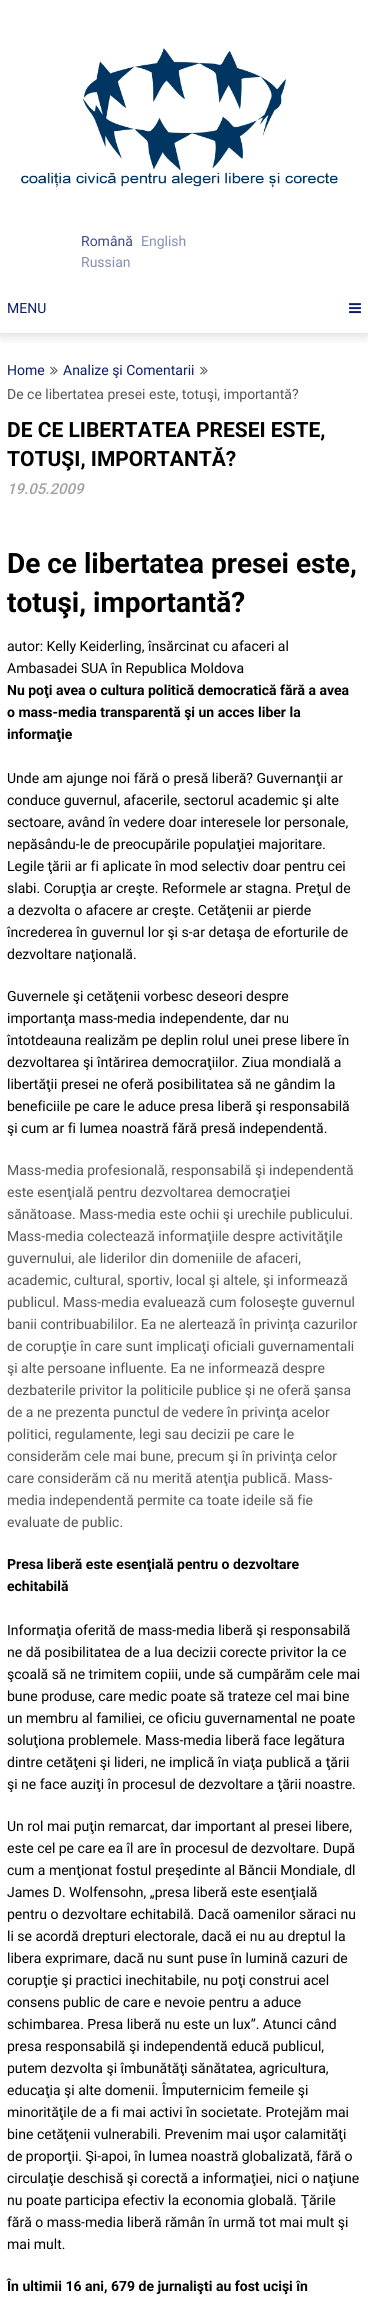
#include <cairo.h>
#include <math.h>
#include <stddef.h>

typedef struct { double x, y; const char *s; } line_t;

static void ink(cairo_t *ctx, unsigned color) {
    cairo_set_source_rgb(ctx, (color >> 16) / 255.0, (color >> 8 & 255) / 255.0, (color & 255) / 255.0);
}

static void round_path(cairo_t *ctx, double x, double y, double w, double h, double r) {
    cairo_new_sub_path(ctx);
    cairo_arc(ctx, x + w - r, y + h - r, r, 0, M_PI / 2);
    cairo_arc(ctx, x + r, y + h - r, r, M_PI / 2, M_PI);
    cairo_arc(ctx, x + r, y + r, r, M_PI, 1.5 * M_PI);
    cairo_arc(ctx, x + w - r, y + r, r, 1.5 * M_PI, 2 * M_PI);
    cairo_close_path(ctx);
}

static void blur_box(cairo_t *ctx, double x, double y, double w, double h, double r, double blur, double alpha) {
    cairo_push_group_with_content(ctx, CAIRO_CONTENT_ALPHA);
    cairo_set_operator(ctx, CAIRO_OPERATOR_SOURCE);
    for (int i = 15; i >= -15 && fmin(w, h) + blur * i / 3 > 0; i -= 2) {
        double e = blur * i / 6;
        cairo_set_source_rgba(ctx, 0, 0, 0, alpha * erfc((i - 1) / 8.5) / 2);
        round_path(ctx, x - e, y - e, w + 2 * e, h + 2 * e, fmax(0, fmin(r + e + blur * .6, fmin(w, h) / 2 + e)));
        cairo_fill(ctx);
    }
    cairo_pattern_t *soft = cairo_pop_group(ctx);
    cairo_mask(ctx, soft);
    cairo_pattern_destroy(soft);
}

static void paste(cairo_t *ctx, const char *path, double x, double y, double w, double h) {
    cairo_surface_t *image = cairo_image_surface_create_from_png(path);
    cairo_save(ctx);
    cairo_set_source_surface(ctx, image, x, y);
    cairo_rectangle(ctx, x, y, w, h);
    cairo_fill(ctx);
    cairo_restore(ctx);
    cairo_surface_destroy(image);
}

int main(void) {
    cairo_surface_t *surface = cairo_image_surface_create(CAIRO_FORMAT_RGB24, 368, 2305);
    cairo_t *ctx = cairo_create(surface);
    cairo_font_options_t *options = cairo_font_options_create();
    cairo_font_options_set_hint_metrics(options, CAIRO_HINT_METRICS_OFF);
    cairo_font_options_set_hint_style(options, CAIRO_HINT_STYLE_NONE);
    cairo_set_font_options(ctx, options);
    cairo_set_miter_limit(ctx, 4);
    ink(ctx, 0xFFFFFF);
    cairo_paint(ctx);
    cairo_save(ctx);
    cairo_rectangle(ctx, 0, 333, 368, 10);
    cairo_clip(ctx);
    ink(ctx, 0x000000);
    blur_box(ctx, 0, 0, 368, 333, 0, 7.5, 0.2);
    cairo_restore(ctx);
    paste(ctx, "media/1.png", 21, 48, 317, 140);
    cairo_select_font_face(ctx, "Roboto", CAIRO_FONT_SLANT_NORMAL, CAIRO_FONT_WEIGHT_NORMAL);
    cairo_set_font_size(ctx, 14);
    ink(ctx, 0x3D4B86);
    cairo_move_to(ctx, 81, 246);
    cairo_show_text(ctx, "Română");
    ink(ctx, 0x868FB4);
    cairo_move_to(ctx, 141, 246);
    cairo_show_text(ctx, "English");
    cairo_move_to(ctx, 81, 267);
    cairo_show_text(ctx, "Russian");
    ink(ctx, 0x0C1E68);
    cairo_move_to(ctx, 7, 313);
    cairo_show_text(ctx, "MENU");
    paste(ctx, "media/2.png", 349, 303, 12, 11);
    cairo_move_to(ctx, 7, 375);
    cairo_show_text(ctx, "Home");
    paste(ctx, "media/3.png", 50, 366, 8, 9);
    cairo_move_to(ctx, 63, 375);
    cairo_show_text(ctx, "Analize şi Comentarii");
    paste(ctx, "media/3.png", 200, 366, 8, 9);
    ink(ctx, 0x555555);
    cairo_move_to(ctx, 7, 399);
    cairo_show_text(ctx, "De ce libertatea presei este, totuşi, importantă?");
    cairo_select_font_face(ctx, "Roboto", CAIRO_FONT_SLANT_NORMAL, CAIRO_FONT_WEIGHT_BOLD);
    cairo_set_font_size(ctx, 21);
    ink(ctx, 0x000000);
    cairo_move_to(ctx, 7, 437);
    cairo_show_text(ctx, "DE CE LIBERTATEA PRESEI ESTE,");
    cairo_move_to(ctx, 7, 466);
    cairo_show_text(ctx, "TOTUŞI, IMPORTANTĂ?");
    cairo_select_font_face(ctx, "Roboto Medium", CAIRO_FONT_SLANT_ITALIC, CAIRO_FONT_WEIGHT_NORMAL);
    cairo_set_font_size(ctx, 15);
    ink(ctx, 0xA2A2A2);
    cairo_move_to(ctx, 7, 494);
    cairo_show_text(ctx, "19.05.2009");
    cairo_select_font_face(ctx, "Roboto", CAIRO_FONT_SLANT_NORMAL, CAIRO_FONT_WEIGHT_BOLD);
    cairo_set_font_size(ctx, 28);
    ink(ctx, 0x000000);
    cairo_move_to(ctx, 7, 573);
    cairo_show_text(ctx, "De ce libertatea presei este,");
    cairo_move_to(ctx, 7, 612);
    cairo_show_text(ctx, "totuşi, importantă?");
    cairo_select_font_face(ctx, "Roboto", CAIRO_FONT_SLANT_NORMAL, CAIRO_FONT_WEIGHT_NORMAL);
    cairo_set_font_size(ctx, 14);
    cairo_move_to(ctx, 7, 651);
    cairo_show_text(ctx, "autor: Kelly Keiderling, însărcinat cu afaceri al");
    cairo_move_to(ctx, 7, 673);
    cairo_show_text(ctx, "Ambasadei SUA în Republica Moldova");
    cairo_select_font_face(ctx, "Roboto", CAIRO_FONT_SLANT_NORMAL, CAIRO_FONT_WEIGHT_BOLD);
    {
        static const line_t items[] = {
            {7, 695, "Nu poţi avea o cultura politică democratică fără a avea"},
            {7, 717, "o mass-media transparentă şi un acces liber la"},
            {7, 739, "informaţie"},
        };
        for (size_t i = 0; i < sizeof items / sizeof *items; i++) {
            cairo_move_to(ctx, items[i].x, items[i].y);
            cairo_show_text(ctx, items[i].s);
        }
    }
    cairo_select_font_face(ctx, "Roboto", CAIRO_FONT_SLANT_NORMAL, CAIRO_FONT_WEIGHT_NORMAL);
    {
        static const line_t items[] = {
            {7, 783, "Unde am ajunge noi fără o presă liberă? Guvernanţii ar"},
            {7, 805, "conduce guvernul, afacerile, sectorul academic şi alte"},
            {7, 827, "sectoare, având în vedere doar interesele lor personale,"},
            {7, 849, "nepăsându-le de preocupările populaţiei majoritare."},
            {7, 871, "Legile ţării ar fi aplicate în mod selectiv doar pentru cei"},
            {7, 893, "slabi. Corupţia ar creşte. Reformele ar stagna. Preţul de"},
            {7, 915, "a dezvolta o afacere ar creşte. Cetăţenii ar pierde"},
            {7, 937, "încrederea în guvernul lor şi s-ar detaşa de eforturile de"},
            {7, 959, "dezvoltare naţională."},
            {7, 1001, "Guvernele şi cetăţenii vorbesc deseori despre"},
            {7, 1023, "importanţa mass-media independente, dar nu"},
            {7, 1045, "întotdeauna realizăm pe deplin rolul unei prese libere în"},
            {7, 1067, "dezvoltarea şi întărirea democraţiilor. Ziua mondială a"},
            {7, 1089, "libertăţii presei ne oferă posibilitatea să ne gândim la"},
            {7, 1111, "beneficiile pe care le aduce presa liberă şi responsabilă"},
            {7, 1133, "şi cum ar fi lumea noastră fără presă independentă."},
        };
        for (size_t i = 0; i < sizeof items / sizeof *items; i++) {
            cairo_move_to(ctx, items[i].x, items[i].y);
            cairo_show_text(ctx, items[i].s);
        }
    }
    ink(ctx, 0x555555);
    {
        static const line_t items[] = {
            {7, 1175, "Mass-media profesională, responsabilă şi independentă"},
            {7, 1197, "este esenţială pentru dezvoltarea democraţiei"},
            {7, 1219, "sănătoase. Mass-media este ochii şi urechile publicului."},
            {7, 1241, "Mass-media colectează informaţiile despre activităţile"},
            {7, 1263, "guvernului, ale liderilor din domeniile de afaceri,"},
            {7, 1285, "academic, cultural, sportiv, local şi altele, şi informează"},
            {7, 1307, "publicul. Mass-media evaluează cum foloseşte guvernul"},
            {7, 1329, "banii contribuabililor. Ea ne alertează în privinţa cazurilor"},
            {7, 1351, "de corupţie în care sunt implicaţi oficiali guvernamentali"},
            {7, 1373, "şi alte persoane influente. Ea ne informează despre"},
            {7, 1395, "dezbaterile privitor la politicile publice şi ne oferă şansa"},
            {7, 1417, "de a ne prezenta punctul de vedere în privinţa acelor"},
            {7, 1439, "politici, regulamente, legi sau decizii pe care le"},
            {7, 1461, "considerăm cele mai bune, precum şi în privinţa celor"},
            {7, 1483, "care considerăm că nu merită atenţia publică. Mass-"},
            {7, 1505, "media independentă permite ca toate ideile să fie"},
            {7, 1527, "evaluate de public."},
        };
        for (size_t i = 0; i < sizeof items / sizeof *items; i++) {
            cairo_move_to(ctx, items[i].x, items[i].y);
            cairo_show_text(ctx, items[i].s);
        }
    }
    cairo_select_font_face(ctx, "Roboto", CAIRO_FONT_SLANT_NORMAL, CAIRO_FONT_WEIGHT_BOLD);
    ink(ctx, 0x000000);
    cairo_move_to(ctx, 7, 1569);
    cairo_show_text(ctx, "Presa liberă este esenţială pentru o dezvoltare");
    cairo_move_to(ctx, 7, 1591);
    cairo_show_text(ctx, "echitabilă");
    cairo_select_font_face(ctx, "Roboto", CAIRO_FONT_SLANT_NORMAL, CAIRO_FONT_WEIGHT_NORMAL);
    {
        static const line_t items[] = {
            {7, 1635, "Informaţia oferită de mass-media liberă şi responsabilă"},
            {7, 1657, "ne dă posibilitatea de a lua decizii corecte privitor la ce"},
            {7, 1679, "şcoală să ne trimitem copiii, unde să cumpărăm cele mai"},
            {7, 1701, "bune produse, care medic poate să trateze cel mai bine"},
            {7, 1723, "un membru al familiei, ce oficiu guvernamental ne poate"},
            {7, 1745, "soluţiona problemele. Mass-media liberă face legătura"},
            {7, 1767, "dintre cetăţeni şi lideri, ne implică în viaţa publică a ţării"},
            {7, 1789, "şi ne face auziţi în procesul de dezvoltare a ţării noastre."},
            {7, 1831, "Un rol mai puţin remarcat, dar important al presei libere,"},
            {7, 1853, "este cel pe care ea îl are în procesul de dezvoltare. După"},
            {7, 1875, "cum a menţionat fostul preşedinte al Băncii Mondiale, dl"},
            {7, 1897, "James D. Wolfensohn, „presa liberă este esenţială"},
            {7, 1919, "pentru o dezvoltare echitabilă. Dacă oamenilor săraci nu"},
            {7, 1941, "li se acordă drepturi electorale, dacă ei nu au dreptul la"},
            {7, 1963, "libera exprimare, dacă nu sunt puse în lumină cazuri de"},
            {7, 1985, "corupţie şi practici inechitabile, nu poţi construi acel"},
            {7, 2007, "consens public de care e nevoie pentru a aduce"},
            {7, 2029, "schimbarea. Presa liberă nu este un lux”. Atunci când"},
            {7, 2051, "presa responsabilă şi independentă educă publicul,"},
            {7, 2073, "putem dezvolta şi îmbunătăţi sănătatea, agricultura,"},
            {7, 2095, "educaţia şi alte domenii. Împuternicim femeile şi"},
            {7, 2117, "minorităţile de a fi mai activi în societate. Protejăm mai"},
            {7, 2139, "bine cetăţenii vulnerabili. Prevenim mai uşor calamităţi"},
            {7, 2161, "de proporţii. Şi-apoi, în lumea noastră globalizată, fără o"},
            {7, 2183, "circulaţie deschisă şi corectă a informaţiei, nici o naţiune"},
            {7, 2205, "nu poate participa efectiv la economia globală. Ţările"},
            {7, 2227, "fără o mass-media liberă rămân în urmă tot mai mult şi"},
            {7, 2249, "mai mult."},
        };
        for (size_t i = 0; i < sizeof items / sizeof *items; i++) {
            cairo_move_to(ctx, items[i].x, items[i].y);
            cairo_show_text(ctx, items[i].s);
        }
    }
    cairo_select_font_face(ctx, "Roboto", CAIRO_FONT_SLANT_NORMAL, CAIRO_FONT_WEIGHT_BOLD);
    cairo_move_to(ctx, 7, 2291);
    cairo_show_text(ctx, "În ultimii 16 ani, 679 de jurnalişti au fost ucişi în");
    cairo_surface_write_to_png(surface, "image.png");
    cairo_font_options_destroy(options);
    cairo_destroy(ctx);
    cairo_surface_destroy(surface);
    return 0;
}
